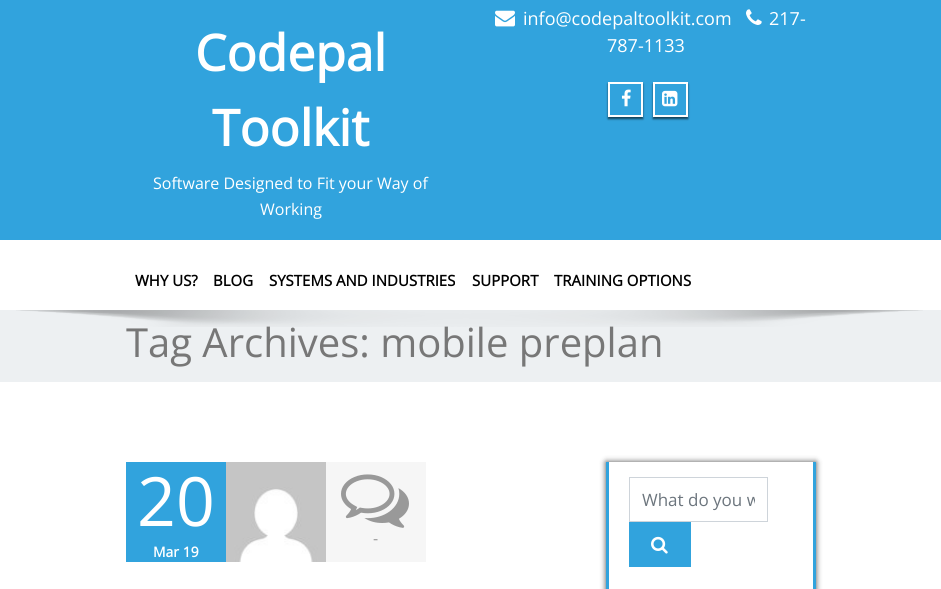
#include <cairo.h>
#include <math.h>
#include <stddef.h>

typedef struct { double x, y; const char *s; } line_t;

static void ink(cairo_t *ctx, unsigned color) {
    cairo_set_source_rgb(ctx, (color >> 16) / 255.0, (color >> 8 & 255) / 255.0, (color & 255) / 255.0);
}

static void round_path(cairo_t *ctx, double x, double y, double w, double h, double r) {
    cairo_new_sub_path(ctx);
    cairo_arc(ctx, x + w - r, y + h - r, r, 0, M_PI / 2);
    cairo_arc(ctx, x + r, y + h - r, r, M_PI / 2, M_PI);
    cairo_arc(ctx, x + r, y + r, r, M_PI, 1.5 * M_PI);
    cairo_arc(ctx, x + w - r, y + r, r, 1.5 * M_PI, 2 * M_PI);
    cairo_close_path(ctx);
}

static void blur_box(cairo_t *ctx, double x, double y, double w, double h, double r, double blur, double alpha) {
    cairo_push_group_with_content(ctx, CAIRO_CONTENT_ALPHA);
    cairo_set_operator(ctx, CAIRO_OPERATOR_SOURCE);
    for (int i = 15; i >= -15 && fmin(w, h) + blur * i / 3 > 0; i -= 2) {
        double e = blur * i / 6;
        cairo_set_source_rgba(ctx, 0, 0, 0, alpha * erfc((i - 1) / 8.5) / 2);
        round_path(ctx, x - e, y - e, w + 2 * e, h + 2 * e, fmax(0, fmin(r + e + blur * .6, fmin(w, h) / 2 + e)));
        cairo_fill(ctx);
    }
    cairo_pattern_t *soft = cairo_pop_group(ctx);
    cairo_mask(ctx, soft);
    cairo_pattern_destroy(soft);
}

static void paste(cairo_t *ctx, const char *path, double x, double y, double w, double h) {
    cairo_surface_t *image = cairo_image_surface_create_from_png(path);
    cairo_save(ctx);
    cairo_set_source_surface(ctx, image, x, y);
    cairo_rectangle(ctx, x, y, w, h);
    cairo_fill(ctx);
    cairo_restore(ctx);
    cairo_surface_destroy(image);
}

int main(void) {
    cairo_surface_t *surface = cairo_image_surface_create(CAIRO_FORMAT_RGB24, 941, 589);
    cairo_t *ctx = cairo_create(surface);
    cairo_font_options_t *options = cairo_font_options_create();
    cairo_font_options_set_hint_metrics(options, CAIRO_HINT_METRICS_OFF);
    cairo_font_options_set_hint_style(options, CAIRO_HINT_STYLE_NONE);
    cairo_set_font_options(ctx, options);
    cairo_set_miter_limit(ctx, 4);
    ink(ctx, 0xFFFFFF);
    cairo_paint(ctx);
    ink(ctx, 0x31A3DD);
    cairo_rectangle(ctx, 0, 0, 941, 240);
    cairo_fill(ctx);
    cairo_select_font_face(ctx, "Open Sans", CAIRO_FONT_SLANT_NORMAL, CAIRO_FONT_WEIGHT_BOLD);
    cairo_set_font_size(ctx, 50);
    ink(ctx, 0xFFFFFF);
    cairo_move_to(ctx, 195, 71);
    cairo_show_text(ctx, "Codepal");
    cairo_move_to(ctx, 212, 146);
    cairo_show_text(ctx, "Toolkit");
    cairo_select_font_face(ctx, "Open Sans", CAIRO_FONT_SLANT_NORMAL, CAIRO_FONT_WEIGHT_NORMAL);
    cairo_set_font_size(ctx, 16);
    cairo_move_to(ctx, 153, 189);
    cairo_show_text(ctx, "Software Designed to Fit your Way of");
    cairo_move_to(ctx, 260, 215);
    cairo_show_text(ctx, "Working");
    paste(ctx, "media/1.png", 495, 10, 20, 17);
    cairo_set_font_size(ctx, 18);
    cairo_move_to(ctx, 523, 25);
    cairo_show_text(ctx, "info@codepaltoolkit.com");
    paste(ctx, "media/2.png", 746, 9, 16, 16);
    cairo_move_to(ctx, 769, 25);
    cairo_show_text(ctx, "217-");
    cairo_move_to(ctx, 607, 52);
    cairo_show_text(ctx, "787-1133");
    cairo_save(ctx);
    cairo_set_fill_rule(ctx, CAIRO_FILL_RULE_EVEN_ODD);
    cairo_new_path(ctx);
    cairo_move_to(ctx, 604, 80);
    cairo_line_to(ctx, 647, 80);
    cairo_line_to(ctx, 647, 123);
    cairo_line_to(ctx, 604, 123);
    cairo_close_path(ctx);
    cairo_move_to(ctx, 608, 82);
    cairo_line_to(ctx, 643, 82);
    cairo_line_to(ctx, 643, 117);
    cairo_line_to(ctx, 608, 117);
    cairo_close_path(ctx);
    cairo_clip(ctx);
    ink(ctx, 0x000000);
    blur_box(ctx, 608, 84, 35, 35, 0, 1, 0.6);
    cairo_restore(ctx);
    cairo_rectangle(ctx, 609, 83, 33, 33);
    cairo_stroke(ctx);
    paste(ctx, "media/3.png", 621, 89, 10, 18);
    cairo_save(ctx);
    cairo_set_fill_rule(ctx, CAIRO_FILL_RULE_EVEN_ODD);
    cairo_new_path(ctx);
    cairo_move_to(ctx, 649, 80);
    cairo_line_to(ctx, 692, 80);
    cairo_line_to(ctx, 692, 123);
    cairo_line_to(ctx, 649, 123);
    cairo_close_path(ctx);
    cairo_move_to(ctx, 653, 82);
    cairo_line_to(ctx, 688, 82);
    cairo_line_to(ctx, 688, 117);
    cairo_line_to(ctx, 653, 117);
    cairo_close_path(ctx);
    cairo_clip(ctx);
    ink(ctx, 0x000000);
    blur_box(ctx, 653, 84, 35, 35, 0, 1, 0.6);
    cairo_restore(ctx);
    cairo_rectangle(ctx, 654, 83, 33, 33);
    cairo_stroke(ctx);
    paste(ctx, "media/4.png", 662, 90, 16, 17);
    cairo_select_font_face(ctx, "Open Sans", CAIRO_FONT_SLANT_NORMAL, CAIRO_FONT_WEIGHT_BOLD);
    cairo_set_font_size(ctx, 15);
    ink(ctx, 0x000000);
    {
        static const line_t items[] = {
            {135, 286, "WHY US?"},
            {213, 286, "BLOG"},
            {269, 286, "SYSTEMS AND INDUSTRIES"},
            {472, 286, "SUPPORT"},
            {554, 286, "TRAINING OPTIONS"},
        };
        for (size_t i = 0; i < sizeof items / sizeof *items; i++) {
            cairo_move_to(ctx, items[i].x, items[i].y);
            cairo_show_text(ctx, items[i].s);
        }
    }
    ink(ctx, 0xEDF0F2);
    cairo_rectangle(ctx, 0, 310, 941, 72);
    cairo_fill(ctx);
    cairo_select_font_face(ctx, "Open Sans", CAIRO_FONT_SLANT_NORMAL, CAIRO_FONT_WEIGHT_NORMAL);
    cairo_set_font_size(ctx, 40);
    ink(ctx, 0x777777);
    cairo_move_to(ctx, 126, 357);
    cairo_show_text(ctx, "Tag Archives: mobile preplan");
    paste(ctx, "media/5.png", 16, 310, 907, 17);
    ink(ctx, 0x31A3DD);
    cairo_rectangle(ctx, 126, 462, 100, 100);
    cairo_fill(ctx);
    cairo_set_font_size(ctx, 68);
    ink(ctx, 0xFFFFFF);
    cairo_move_to(ctx, 137, 526);
    cairo_show_text(ctx, "20");
    cairo_select_font_face(ctx, "Open Sans", CAIRO_FONT_SLANT_NORMAL, CAIRO_FONT_WEIGHT_BOLD);
    cairo_set_font_size(ctx, 14);
    cairo_move_to(ctx, 153, 557);
    cairo_show_text(ctx, "Mar 19");
    paste(ctx, "media/6.png", 226, 462, 100, 100);
    ink(ctx, 0xF6F6F6);
    cairo_rectangle(ctx, 326, 462, 100, 100);
    cairo_fill(ctx);
    paste(ctx, "media/7.png", 341, 474, 68, 54);
    cairo_select_font_face(ctx, "Open Sans", CAIRO_FONT_SLANT_NORMAL, CAIRO_FONT_WEIGHT_NORMAL);
    cairo_set_font_size(ctx, 16);
    ink(ctx, 0x999999);
    cairo_move_to(ctx, 373, 544);
    cairo_show_text(ctx, "-");
    cairo_save(ctx);
    cairo_set_fill_rule(ctx, CAIRO_FILL_RULE_EVEN_ODD);
    cairo_new_path(ctx);
    cairo_move_to(ctx, 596, 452);
    cairo_line_to(ctx, 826, 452);
    cairo_line_to(ctx, 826, 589);
    cairo_line_to(ctx, 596, 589);
    cairo_close_path(ctx);
    cairo_move_to(ctx, 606, 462);
    cairo_line_to(ctx, 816, 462);
    cairo_line_to(ctx, 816, 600);
    cairo_line_to(ctx, 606, 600);
    cairo_close_path(ctx);
    cairo_clip(ctx);
    ink(ctx, 0x000000);
    blur_box(ctx, 606, 462, 210, 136, 0, 3, 0.7);
    cairo_restore(ctx);
    ink(ctx, 0x31A3DD);
    cairo_rectangle(ctx, 813, 462, 3, 127);
    cairo_fill(ctx);
    cairo_rectangle(ctx, 606, 462, 3, 127);
    cairo_fill(ctx);
    cairo_rectangle(ctx, 629.5, 477.5, 138, 44);
    ink(ctx, 0xCED4DA);
    cairo_set_line_width(ctx, 1);
    cairo_stroke(ctx);
    cairo_save(ctx);
    cairo_rectangle(ctx, 642, 488, 113, 23);
    cairo_clip(ctx);
    cairo_set_font_size(ctx, 17);
    ink(ctx, 0x6C757D);
    cairo_move_to(ctx, 642, 506);
    cairo_show_text(ctx, "What do you w");
    cairo_restore(ctx);
    ink(ctx, 0x31A3DD);
    cairo_rectangle(ctx, 629, 522, 62, 45);
    cairo_fill(ctx);
    paste(ctx, "media/8.png", 651, 536, 17, 18);
    cairo_surface_write_to_png(surface, "image.png");
    cairo_font_options_destroy(options);
    cairo_destroy(ctx);
    cairo_surface_destroy(surface);
    return 0;
}
